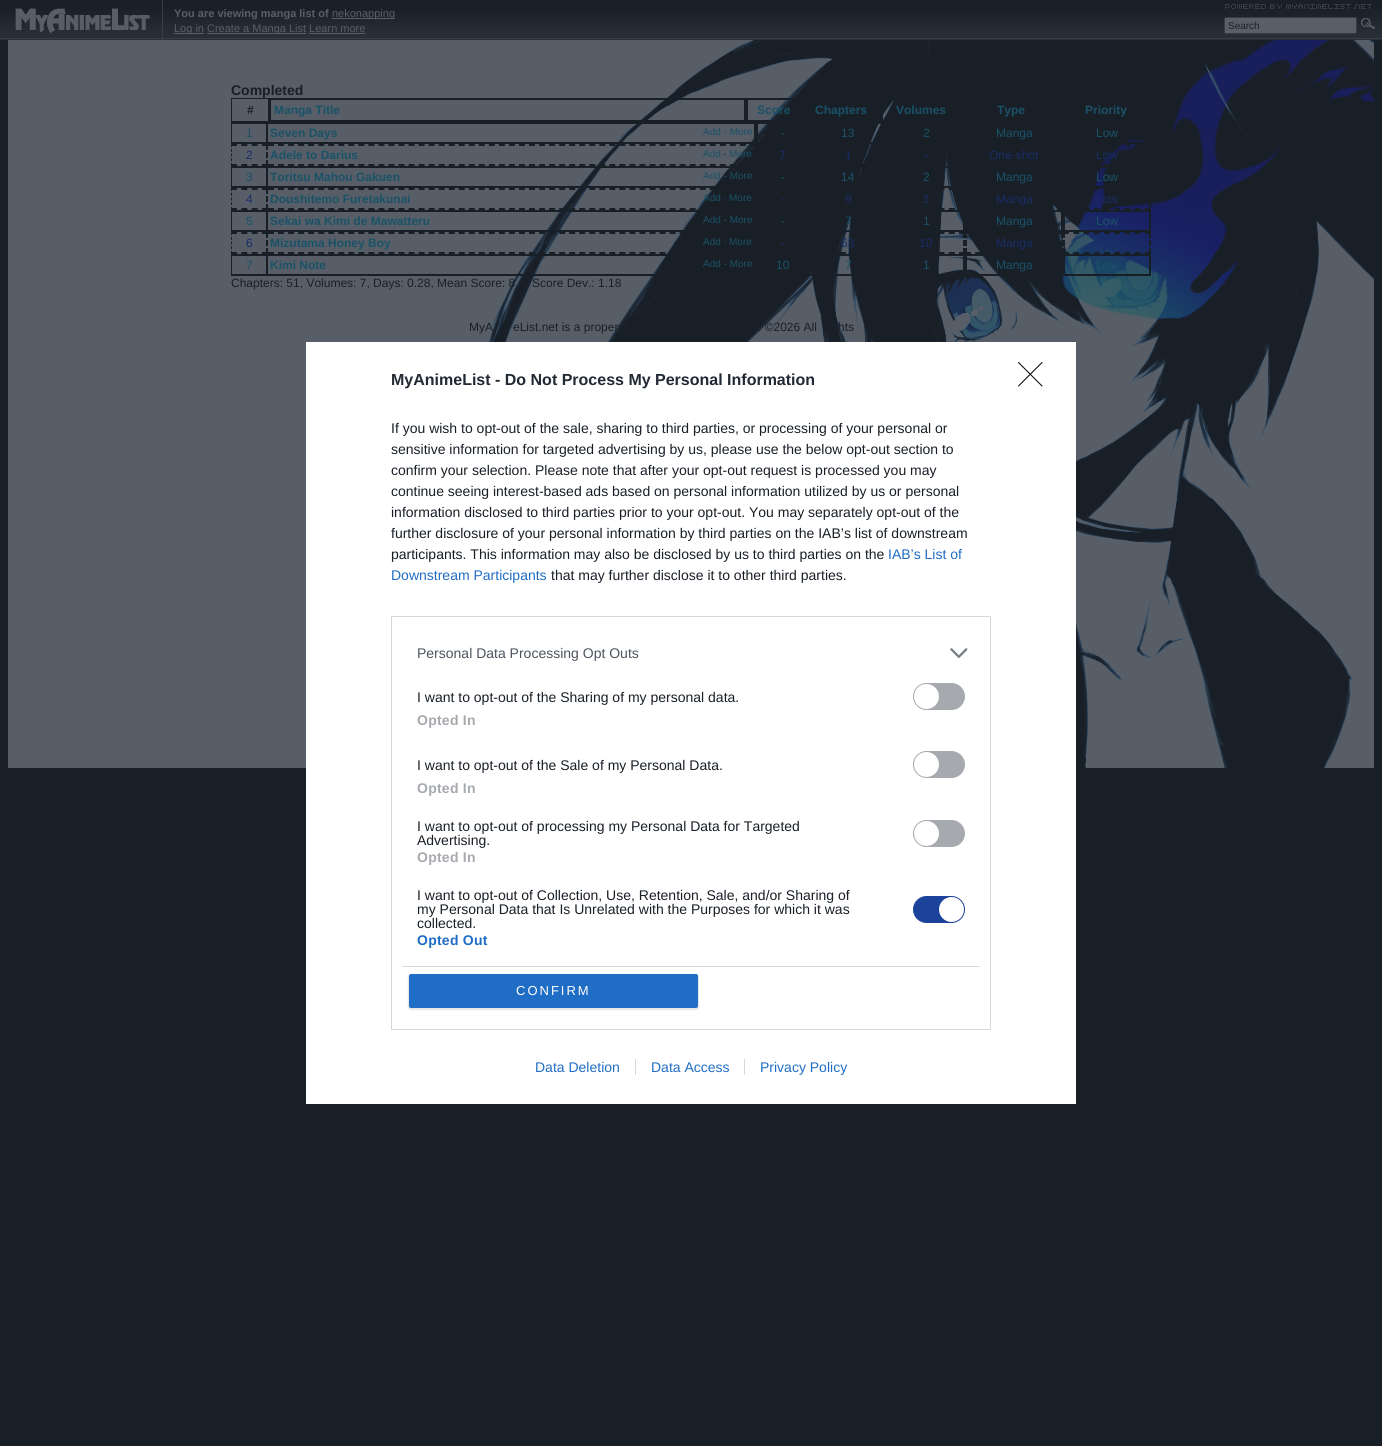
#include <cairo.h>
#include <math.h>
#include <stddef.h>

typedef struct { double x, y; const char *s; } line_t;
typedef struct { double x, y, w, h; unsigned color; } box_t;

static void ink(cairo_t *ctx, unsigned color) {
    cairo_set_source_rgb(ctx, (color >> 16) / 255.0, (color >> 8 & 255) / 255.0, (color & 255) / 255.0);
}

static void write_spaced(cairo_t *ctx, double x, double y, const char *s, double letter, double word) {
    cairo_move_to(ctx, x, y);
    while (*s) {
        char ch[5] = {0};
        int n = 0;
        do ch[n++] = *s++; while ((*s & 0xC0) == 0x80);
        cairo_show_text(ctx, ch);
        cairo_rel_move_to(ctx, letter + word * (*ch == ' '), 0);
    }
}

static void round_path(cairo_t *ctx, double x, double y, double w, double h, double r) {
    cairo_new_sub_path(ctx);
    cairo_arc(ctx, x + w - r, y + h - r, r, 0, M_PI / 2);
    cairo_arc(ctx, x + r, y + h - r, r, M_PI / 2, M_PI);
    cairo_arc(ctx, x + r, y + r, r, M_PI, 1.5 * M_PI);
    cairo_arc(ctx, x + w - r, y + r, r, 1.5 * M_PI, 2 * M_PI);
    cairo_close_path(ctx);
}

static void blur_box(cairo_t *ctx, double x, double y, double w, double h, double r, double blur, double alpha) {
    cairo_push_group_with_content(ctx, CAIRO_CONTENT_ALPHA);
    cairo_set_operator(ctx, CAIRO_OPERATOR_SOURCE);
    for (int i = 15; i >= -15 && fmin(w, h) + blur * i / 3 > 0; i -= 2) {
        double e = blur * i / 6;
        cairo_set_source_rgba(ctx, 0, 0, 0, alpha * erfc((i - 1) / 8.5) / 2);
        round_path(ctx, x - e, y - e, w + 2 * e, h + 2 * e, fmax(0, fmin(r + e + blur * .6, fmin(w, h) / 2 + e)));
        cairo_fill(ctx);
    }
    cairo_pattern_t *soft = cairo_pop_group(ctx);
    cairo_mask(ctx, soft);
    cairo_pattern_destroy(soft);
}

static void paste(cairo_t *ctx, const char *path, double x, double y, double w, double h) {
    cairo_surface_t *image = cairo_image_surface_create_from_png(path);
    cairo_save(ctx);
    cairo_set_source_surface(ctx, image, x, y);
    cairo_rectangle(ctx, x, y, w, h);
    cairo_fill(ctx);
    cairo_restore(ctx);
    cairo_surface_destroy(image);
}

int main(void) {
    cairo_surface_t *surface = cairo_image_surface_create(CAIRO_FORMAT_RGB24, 1382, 1446);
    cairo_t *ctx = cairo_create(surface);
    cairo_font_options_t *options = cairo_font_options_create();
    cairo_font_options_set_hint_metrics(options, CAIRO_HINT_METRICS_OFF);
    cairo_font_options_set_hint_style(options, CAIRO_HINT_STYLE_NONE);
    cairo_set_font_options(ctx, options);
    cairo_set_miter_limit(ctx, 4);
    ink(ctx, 0x191F27);
    cairo_paint(ctx);
    paste(ctx, "media/1.png", 8, 40, 1366, 728);
    paste(ctx, "media/2.png", 0, 8, 1382, 32);
    ink(ctx, 0x383E47);
    cairo_rectangle(ctx, 162, 0, 1, 40);
    cairo_fill(ctx);
    paste(ctx, "media/3.png", 15, 8, 135, 25);
    cairo_select_font_face(ctx, "Liberation Sans", CAIRO_FONT_SLANT_NORMAL, CAIRO_FONT_WEIGHT_BOLD);
    cairo_set_font_size(ctx, 11);
    ink(ctx, 0x595F67);
    cairo_move_to(ctx, 174, 17);
    cairo_show_text(ctx, "You are viewing manga list of");
    cairo_rectangle(ctx, 332, 18, 63, 1);
    cairo_fill(ctx);
    cairo_select_font_face(ctx, "Liberation Sans", CAIRO_FONT_SLANT_NORMAL, CAIRO_FONT_WEIGHT_NORMAL);
    cairo_move_to(ctx, 332, 17);
    cairo_show_text(ctx, "nekonapping");
    cairo_rectangle(ctx, 174, 33, 30, 1);
    cairo_fill(ctx);
    cairo_move_to(ctx, 174, 32);
    cairo_show_text(ctx, "Log in");
    cairo_rectangle(ctx, 207, 33, 99, 1);
    cairo_fill(ctx);
    cairo_move_to(ctx, 207, 32);
    cairo_show_text(ctx, "Create a Manga List Learn more");
    cairo_rectangle(ctx, 309, 33, 56, 1);
    cairo_fill(ctx);
    paste(ctx, "media/4.png", 1225, 4, 147, 5);
    round_path(ctx, 1224.5, 17.5, 132, 16, 1.5);
    cairo_fill_preserve(ctx);
    ink(ctx, 0x363C45);
    cairo_set_line_width(ctx, 1);
    cairo_stroke(ctx);
    cairo_set_font_size(ctx, 10);
    ink(ctx, 0x191F27);
    cairo_move_to(ctx, 1228, 29);
    cairo_show_text(ctx, "Search");
    paste(ctx, "media/5.png", 1361, 18, 14, 11);
    cairo_select_font_face(ctx, "Liberation Sans", CAIRO_FONT_SLANT_NORMAL, CAIRO_FONT_WEIGHT_BOLD);
    cairo_set_font_size(ctx, 14);
    cairo_move_to(ctx, 231, 95);
    cairo_show_text(ctx, "Completed");
    cairo_rectangle(ctx, 231.5, 98.5, 37, 23);
    cairo_stroke(ctx);
    cairo_set_font_size(ctx, 12);
    cairo_move_to(ctx, 247, 114);
    cairo_show_text(ctx, "#");
    cairo_rectangle(ctx, 270, 99, 475, 22);
    cairo_set_line_width(ctx, 2);
    cairo_stroke(ctx);
    ink(ctx, 0x195267);
    cairo_move_to(ctx, 274, 114);
    cairo_show_text(ctx, "Manga Title");
    cairo_rectangle(ctx, 747, 99, 53, 22);
    ink(ctx, 0x191F27);
    cairo_stroke(ctx);
    ink(ctx, 0x195267);
    cairo_move_to(ctx, 757, 114);
    cairo_show_text(ctx, "Score");
    cairo_rectangle(ctx, 802, 99, 78, 22);
    ink(ctx, 0x191F27);
    cairo_stroke(ctx);
    ink(ctx, 0x195267);
    cairo_move_to(ctx, 815, 114);
    cairo_show_text(ctx, "Chapters");
    cairo_rectangle(ctx, 882, 99, 78, 22);
    ink(ctx, 0x191F27);
    cairo_stroke(ctx);
    ink(ctx, 0x195267);
    {
        static const line_t items[] = {
            {896, 114, "Volumes"},
            {997, 114, "Type"},
            {1085, 114, "Priority"},
        };
        for (size_t i = 0; i < sizeof items / sizeof *items; i++) {
            cairo_move_to(ctx, items[i].x, items[i].y);
            cairo_show_text(ctx, items[i].s);
        }
    }
    {
        static const box_t items[] = {
            {231, 122, 525, 2, 0x191F27},
            {266, 122, 2, 22, 0x191F27},
            {231, 142, 37, 2, 0x191F27},
            {231, 122, 1, 22, 0x191F27},
        };
        for (size_t i = 0; i < sizeof items / sizeof *items; i++) {
            ink(ctx, items[i].color);
            cairo_rectangle(ctx, items[i].x, items[i].y, items[i].w, items[i].h);
            cairo_fill(ctx);
        }
    }
    cairo_select_font_face(ctx, "Liberation Sans", CAIRO_FONT_SLANT_NORMAL, CAIRO_FONT_WEIGHT_NORMAL);
    ink(ctx, 0x195267);
    cairo_move_to(ctx, 246, 137);
    cairo_show_text(ctx, "1");
    ink(ctx, 0x191F27);
    cairo_rectangle(ctx, 754, 122, 2, 22);
    cairo_fill(ctx);
    cairo_rectangle(ctx, 268, 142, 488, 2);
    cairo_fill(ctx);
    cairo_select_font_face(ctx, "Liberation Sans", CAIRO_FONT_SLANT_NORMAL, CAIRO_FONT_WEIGHT_BOLD);
    ink(ctx, 0x195267);
    cairo_move_to(ctx, 270, 137);
    cairo_show_text(ctx, "Seven Days");
    cairo_select_font_face(ctx, "Liberation Sans", CAIRO_FONT_SLANT_NORMAL, CAIRO_FONT_WEIGHT_NORMAL);
    cairo_set_font_size(ctx, 10);
    cairo_move_to(ctx, 703, 135);
    cairo_show_text(ctx, "Add - More");
    cairo_rectangle(ctx, 757, 123, 51, 20);
    ink(ctx, 0x191F27);
    cairo_stroke(ctx);
    cairo_set_font_size(ctx, 12);
    ink(ctx, 0x195267);
    cairo_move_to(ctx, 781, 137);
    cairo_show_text(ctx, "-");
    cairo_rectangle(ctx, 810, 123, 76, 20);
    ink(ctx, 0x191F27);
    cairo_stroke(ctx);
    ink(ctx, 0x195267);
    {
        static const line_t items[] = {
            {841, 137, "13"},
            {923, 137, "2"},
            {996, 137, "Manga"},
        };
        for (size_t i = 0; i < sizeof items / sizeof *items; i++) {
            cairo_move_to(ctx, items[i].x, items[i].y);
            cairo_show_text(ctx, items[i].s);
        }
    }
    cairo_rectangle(ctx, 1064, 123, 86, 20);
    ink(ctx, 0x191F27);
    cairo_stroke(ctx);
    ink(ctx, 0x195267);
    cairo_move_to(ctx, 1096, 137);
    cairo_show_text(ctx, "Low");
    cairo_new_path(ctx);
    cairo_move_to(ctx, 231, 145);
    cairo_line_to(ctx, 268, 145);
    ink(ctx, 0x191F27);
    cairo_set_dash(ctx, (double[]){6, 4.33}, 2, 0);
    cairo_stroke(ctx);
    cairo_new_path(ctx);
    cairo_move_to(ctx, 267, 144);
    cairo_line_to(ctx, 267, 150);
    cairo_move_to(ctx, 267, 152);
    cairo_line_to(ctx, 267, 158);
    cairo_move_to(ctx, 267, 160);
    cairo_line_to(ctx, 267, 166);
    cairo_set_dash(ctx, NULL, 0, 0);
    cairo_stroke(ctx);
    cairo_new_path(ctx);
    cairo_move_to(ctx, 231, 165);
    cairo_line_to(ctx, 268, 165);
    cairo_set_dash(ctx, (double[]){6, 4.33}, 2, 0);
    cairo_stroke(ctx);
    cairo_new_path(ctx);
    cairo_move_to(ctx, 231.5, 144);
    cairo_line_to(ctx, 231.5, 166);
    cairo_set_line_width(ctx, 1);
    cairo_set_dash(ctx, (double[]){3, 1.75}, 2, 0);
    cairo_stroke(ctx);
    ink(ctx, 0x192C67);
    cairo_move_to(ctx, 246, 159);
    cairo_show_text(ctx, "2");
    cairo_new_path(ctx);
    cairo_move_to(ctx, 268, 145);
    cairo_line_to(ctx, 756, 145);
    ink(ctx, 0x191F27);
    cairo_set_line_width(ctx, 2);
    cairo_set_dash(ctx, (double[]){6, 4.04}, 2, 0);
    cairo_stroke(ctx);
    cairo_new_path(ctx);
    cairo_move_to(ctx, 755, 144);
    cairo_line_to(ctx, 755, 150);
    cairo_move_to(ctx, 755, 152);
    cairo_line_to(ctx, 755, 158);
    cairo_move_to(ctx, 755, 160);
    cairo_line_to(ctx, 755, 166);
    cairo_set_dash(ctx, NULL, 0, 0);
    cairo_stroke(ctx);
    cairo_new_path(ctx);
    cairo_move_to(ctx, 268, 165);
    cairo_line_to(ctx, 756, 165);
    cairo_set_dash(ctx, (double[]){6, 4.04}, 2, 0);
    cairo_stroke(ctx);
    cairo_select_font_face(ctx, "Liberation Sans", CAIRO_FONT_SLANT_NORMAL, CAIRO_FONT_WEIGHT_BOLD);
    ink(ctx, 0x195267);
    cairo_move_to(ctx, 270, 159);
    cairo_show_text(ctx, "Adele to Darius");
    cairo_select_font_face(ctx, "Liberation Sans", CAIRO_FONT_SLANT_NORMAL, CAIRO_FONT_WEIGHT_NORMAL);
    cairo_set_font_size(ctx, 10);
    cairo_move_to(ctx, 703, 157);
    cairo_show_text(ctx, "Add");
    ink(ctx, 0x192C67);
    cairo_move_to(ctx, 723, 157);
    cairo_show_text(ctx, "-");
    ink(ctx, 0x195267);
    cairo_move_to(ctx, 729, 157);
    cairo_show_text(ctx, "More");
    cairo_new_path(ctx);
    cairo_move_to(ctx, 756, 145);
    cairo_line_to(ctx, 809, 145);
    ink(ctx, 0x191F27);
    cairo_set_dash(ctx, (double[]){6, 3.4}, 2, 0);
    cairo_stroke(ctx);
    cairo_set_font_size(ctx, 12);
    ink(ctx, 0x192C67);
    cairo_move_to(ctx, 779, 159);
    cairo_show_text(ctx, "7");
    cairo_new_path(ctx);
    cairo_move_to(ctx, 809, 145);
    cairo_line_to(ctx, 887, 145);
    ink(ctx, 0x191F27);
    cairo_set_dash(ctx, (double[]){6, 4.29}, 2, 0);
    cairo_stroke(ctx);
    cairo_new_path(ctx);
    cairo_move_to(ctx, 809, 165);
    cairo_line_to(ctx, 887, 165);
    cairo_stroke(ctx);
    ink(ctx, 0x192C67);
    {
        static const line_t items[] = {
            {845, 159, "1"},
            {924, 159, "-"},
            {989, 159, "One-shot"},
        };
        for (size_t i = 0; i < sizeof items / sizeof *items; i++) {
            cairo_move_to(ctx, items[i].x, items[i].y);
            cairo_show_text(ctx, items[i].s);
        }
    }
    cairo_new_path(ctx);
    cairo_move_to(ctx, 1063, 145);
    cairo_line_to(ctx, 1151, 145);
    ink(ctx, 0x191F27);
    cairo_set_dash(ctx, (double[]){6, 4.25}, 2, 0);
    cairo_stroke(ctx);
    cairo_new_path(ctx);
    cairo_move_to(ctx, 1063, 165);
    cairo_line_to(ctx, 1151, 165);
    cairo_stroke(ctx);
    ink(ctx, 0x192C67);
    cairo_move_to(ctx, 1096, 159);
    cairo_show_text(ctx, "Low");
    {
        static const box_t items[] = {
            {231, 166, 506, 2, 0x191F27},
            {266, 166, 2, 22, 0x191F27},
            {231, 186, 485, 2, 0x191F27},
            {231, 166, 1, 22, 0x191F27},
        };
        for (size_t i = 0; i < sizeof items / sizeof *items; i++) {
            ink(ctx, items[i].color);
            cairo_rectangle(ctx, items[i].x, items[i].y, items[i].w, items[i].h);
            cairo_fill(ctx);
        }
    }
    ink(ctx, 0x195267);
    cairo_move_to(ctx, 246, 181);
    cairo_show_text(ctx, "3");
    cairo_select_font_face(ctx, "Liberation Sans", CAIRO_FONT_SLANT_NORMAL, CAIRO_FONT_WEIGHT_BOLD);
    cairo_move_to(ctx, 270, 181);
    cairo_show_text(ctx, "Toritsu Mahou Gakuen");
    cairo_select_font_face(ctx, "Liberation Sans", CAIRO_FONT_SLANT_NORMAL, CAIRO_FONT_WEIGHT_NORMAL);
    cairo_set_font_size(ctx, 10);
    cairo_move_to(ctx, 703, 179);
    cairo_show_text(ctx, "Add - More");
    cairo_set_font_size(ctx, 12);
    cairo_move_to(ctx, 781, 181);
    cairo_show_text(ctx, "-");
    cairo_rectangle(ctx, 810, 167, 76, 20);
    ink(ctx, 0x191F27);
    cairo_set_dash(ctx, NULL, 0, 0);
    cairo_stroke(ctx);
    ink(ctx, 0x195267);
    cairo_move_to(ctx, 841, 181);
    cairo_show_text(ctx, "14");
    cairo_rectangle(ctx, 888, 167, 76, 20);
    ink(ctx, 0x191F27);
    cairo_stroke(ctx);
    ink(ctx, 0x195267);
    cairo_move_to(ctx, 923, 181);
    cairo_show_text(ctx, "2");
    cairo_move_to(ctx, 996, 181);
    cairo_show_text(ctx, "Manga");
    cairo_rectangle(ctx, 1064, 167, 86, 20);
    ink(ctx, 0x191F27);
    cairo_stroke(ctx);
    ink(ctx, 0x195267);
    cairo_move_to(ctx, 1096, 181);
    cairo_show_text(ctx, "Low");
    cairo_new_path(ctx);
    cairo_move_to(ctx, 231, 189);
    cairo_line_to(ctx, 268, 189);
    ink(ctx, 0x191F27);
    cairo_set_dash(ctx, (double[]){6, 4.33}, 2, 0);
    cairo_stroke(ctx);
    cairo_new_path(ctx);
    cairo_move_to(ctx, 267, 188);
    cairo_line_to(ctx, 267, 194);
    cairo_move_to(ctx, 267, 196);
    cairo_line_to(ctx, 267, 202);
    cairo_move_to(ctx, 267, 204);
    cairo_line_to(ctx, 267, 210);
    cairo_set_dash(ctx, NULL, 0, 0);
    cairo_stroke(ctx);
    cairo_new_path(ctx);
    cairo_move_to(ctx, 231, 209);
    cairo_line_to(ctx, 268, 209);
    cairo_set_dash(ctx, (double[]){6, 4.33}, 2, 0);
    cairo_stroke(ctx);
    cairo_new_path(ctx);
    cairo_move_to(ctx, 231.5, 188);
    cairo_line_to(ctx, 231.5, 210);
    cairo_set_line_width(ctx, 1);
    cairo_set_dash(ctx, (double[]){3, 1.75}, 2, 0);
    cairo_stroke(ctx);
    ink(ctx, 0x192C67);
    cairo_move_to(ctx, 246, 203);
    cairo_show_text(ctx, "4");
    cairo_new_path(ctx);
    cairo_move_to(ctx, 268, 189);
    cairo_line_to(ctx, 756, 189);
    ink(ctx, 0x191F27);
    cairo_set_line_width(ctx, 2);
    cairo_set_dash(ctx, (double[]){6, 4.04}, 2, 0);
    cairo_stroke(ctx);
    cairo_new_path(ctx);
    cairo_move_to(ctx, 268, 209);
    cairo_line_to(ctx, 756, 209);
    cairo_stroke(ctx);
    cairo_select_font_face(ctx, "Liberation Sans", CAIRO_FONT_SLANT_NORMAL, CAIRO_FONT_WEIGHT_BOLD);
    ink(ctx, 0x195267);
    cairo_move_to(ctx, 270, 203);
    cairo_show_text(ctx, "Doushitemo Furetakunai");
    cairo_select_font_face(ctx, "Liberation Sans", CAIRO_FONT_SLANT_NORMAL, CAIRO_FONT_WEIGHT_NORMAL);
    cairo_set_font_size(ctx, 10);
    cairo_move_to(ctx, 703, 201);
    cairo_show_text(ctx, "Add");
    ink(ctx, 0x192C67);
    cairo_move_to(ctx, 723, 201);
    cairo_show_text(ctx, "-");
    ink(ctx, 0x195267);
    cairo_move_to(ctx, 729, 201);
    cairo_show_text(ctx, "More");
    cairo_set_font_size(ctx, 12);
    ink(ctx, 0x192C67);
    cairo_move_to(ctx, 781, 203);
    cairo_show_text(ctx, "-");
    cairo_move_to(ctx, 845, 203);
    cairo_show_text(ctx, "9");
    cairo_new_path(ctx);
    cairo_move_to(ctx, 887, 189);
    cairo_line_to(ctx, 965, 189);
    ink(ctx, 0x191F27);
    cairo_set_dash(ctx, (double[]){6, 4.29}, 2, 0);
    cairo_stroke(ctx);
    cairo_new_path(ctx);
    cairo_move_to(ctx, 887, 209);
    cairo_line_to(ctx, 965, 209);
    cairo_stroke(ctx);
    ink(ctx, 0x192C67);
    cairo_move_to(ctx, 923, 203);
    cairo_show_text(ctx, "1");
    cairo_new_path(ctx);
    cairo_move_to(ctx, 965, 209);
    cairo_line_to(ctx, 1063, 209);
    ink(ctx, 0x191F27);
    cairo_set_dash(ctx, (double[]){6, 4.22}, 2, 0);
    cairo_stroke(ctx);
    ink(ctx, 0x192C67);
    cairo_move_to(ctx, 996, 203);
    cairo_show_text(ctx, "Manga");
    cairo_new_path(ctx);
    cairo_move_to(ctx, 1063, 189);
    cairo_line_to(ctx, 1151, 189);
    ink(ctx, 0x191F27);
    cairo_set_dash(ctx, (double[]){6, 4.25}, 2, 0);
    cairo_stroke(ctx);
    cairo_new_path(ctx);
    cairo_move_to(ctx, 1150, 188);
    cairo_line_to(ctx, 1150, 194);
    cairo_move_to(ctx, 1150, 196);
    cairo_line_to(ctx, 1150, 202);
    cairo_move_to(ctx, 1150, 204);
    cairo_line_to(ctx, 1150, 210);
    cairo_set_dash(ctx, NULL, 0, 0);
    cairo_stroke(ctx);
    cairo_new_path(ctx);
    cairo_move_to(ctx, 1063, 209);
    cairo_line_to(ctx, 1151, 209);
    cairo_set_dash(ctx, (double[]){6, 4.25}, 2, 0);
    cairo_stroke(ctx);
    ink(ctx, 0x192C67);
    cairo_move_to(ctx, 1096, 203);
    cairo_show_text(ctx, "Low");
    {
        static const box_t items[] = {
            {231, 210, 468, 2, 0x191F27},
            {266, 210, 2, 22, 0x191F27},
            {231, 230, 453, 2, 0x191F27},
            {231, 210, 1, 22, 0x191F27},
        };
        for (size_t i = 0; i < sizeof items / sizeof *items; i++) {
            ink(ctx, items[i].color);
            cairo_rectangle(ctx, items[i].x, items[i].y, items[i].w, items[i].h);
            cairo_fill(ctx);
        }
    }
    ink(ctx, 0x195267);
    cairo_move_to(ctx, 246, 225);
    cairo_show_text(ctx, "5");
    cairo_select_font_face(ctx, "Liberation Sans", CAIRO_FONT_SLANT_NORMAL, CAIRO_FONT_WEIGHT_BOLD);
    cairo_move_to(ctx, 270, 225);
    cairo_show_text(ctx, "Sekai wa Kimi de Mawatteru");
    cairo_select_font_face(ctx, "Liberation Sans", CAIRO_FONT_SLANT_NORMAL, CAIRO_FONT_WEIGHT_NORMAL);
    cairo_set_font_size(ctx, 10);
    cairo_move_to(ctx, 703, 223);
    cairo_show_text(ctx, "Add - More");
    cairo_set_font_size(ctx, 12);
    cairo_move_to(ctx, 781, 225);
    cairo_show_text(ctx, "-");
    cairo_rectangle(ctx, 810, 211, 76, 20);
    ink(ctx, 0x191F27);
    cairo_set_dash(ctx, NULL, 0, 0);
    cairo_stroke(ctx);
    ink(ctx, 0x195267);
    cairo_move_to(ctx, 845, 225);
    cairo_show_text(ctx, "7");
    cairo_rectangle(ctx, 888, 211, 76, 20);
    ink(ctx, 0x191F27);
    cairo_stroke(ctx);
    ink(ctx, 0x195267);
    cairo_move_to(ctx, 923, 225);
    cairo_show_text(ctx, "1");
    cairo_rectangle(ctx, 966, 211, 96, 20);
    ink(ctx, 0x191F27);
    cairo_stroke(ctx);
    ink(ctx, 0x195267);
    cairo_move_to(ctx, 996, 225);
    cairo_show_text(ctx, "Manga");
    cairo_rectangle(ctx, 1064, 211, 86, 20);
    ink(ctx, 0x191F27);
    cairo_stroke(ctx);
    ink(ctx, 0x195267);
    cairo_move_to(ctx, 1096, 225);
    cairo_show_text(ctx, "Low");
    cairo_new_path(ctx);
    cairo_move_to(ctx, 231, 233);
    cairo_line_to(ctx, 268, 233);
    ink(ctx, 0x191F27);
    cairo_set_dash(ctx, (double[]){6, 4.33}, 2, 0);
    cairo_stroke(ctx);
    cairo_new_path(ctx);
    cairo_move_to(ctx, 267, 232);
    cairo_line_to(ctx, 267, 238);
    cairo_move_to(ctx, 267, 240);
    cairo_line_to(ctx, 267, 246);
    cairo_move_to(ctx, 267, 248);
    cairo_line_to(ctx, 267, 254);
    cairo_set_dash(ctx, NULL, 0, 0);
    cairo_stroke(ctx);
    cairo_new_path(ctx);
    cairo_move_to(ctx, 231, 253);
    cairo_line_to(ctx, 268, 253);
    cairo_set_dash(ctx, (double[]){6, 4.33}, 2, 0);
    cairo_stroke(ctx);
    cairo_new_path(ctx);
    cairo_move_to(ctx, 231.5, 232);
    cairo_line_to(ctx, 231.5, 254);
    cairo_set_line_width(ctx, 1);
    cairo_set_dash(ctx, (double[]){3, 1.75}, 2, 0);
    cairo_stroke(ctx);
    ink(ctx, 0x192C67);
    cairo_move_to(ctx, 246, 247);
    cairo_show_text(ctx, "6");
    cairo_new_path(ctx);
    cairo_move_to(ctx, 268, 233);
    cairo_line_to(ctx, 756, 233);
    ink(ctx, 0x191F27);
    cairo_set_line_width(ctx, 2);
    cairo_set_dash(ctx, (double[]){6, 4.04}, 2, 0);
    cairo_stroke(ctx);
    cairo_new_path(ctx);
    cairo_move_to(ctx, 268, 253);
    cairo_line_to(ctx, 756, 253);
    cairo_stroke(ctx);
    cairo_select_font_face(ctx, "Liberation Sans", CAIRO_FONT_SLANT_NORMAL, CAIRO_FONT_WEIGHT_BOLD);
    ink(ctx, 0x195267);
    cairo_move_to(ctx, 270, 247);
    cairo_show_text(ctx, "Mizutama Honey Boy");
    cairo_select_font_face(ctx, "Liberation Sans", CAIRO_FONT_SLANT_NORMAL, CAIRO_FONT_WEIGHT_NORMAL);
    cairo_set_font_size(ctx, 10);
    cairo_move_to(ctx, 703, 245);
    cairo_show_text(ctx, "Add");
    ink(ctx, 0x192C67);
    cairo_move_to(ctx, 723, 245);
    cairo_show_text(ctx, "-");
    ink(ctx, 0x195267);
    cairo_move_to(ctx, 729, 245);
    cairo_show_text(ctx, "More");
    cairo_set_font_size(ctx, 12);
    ink(ctx, 0x192C67);
    cairo_move_to(ctx, 781, 247);
    cairo_show_text(ctx, "-");
    cairo_new_path(ctx);
    cairo_move_to(ctx, 809, 233);
    cairo_line_to(ctx, 887, 233);
    ink(ctx, 0x191F27);
    cairo_set_dash(ctx, (double[]){6, 4.29}, 2, 0);
    cairo_stroke(ctx);
    cairo_new_path(ctx);
    cairo_move_to(ctx, 809, 253);
    cairo_line_to(ctx, 887, 253);
    cairo_stroke(ctx);
    ink(ctx, 0x192C67);
    cairo_move_to(ctx, 841, 247);
    cairo_show_text(ctx, "63");
    cairo_new_path(ctx);
    cairo_move_to(ctx, 887, 233);
    cairo_line_to(ctx, 965, 233);
    ink(ctx, 0x191F27);
    cairo_stroke(ctx);
    cairo_new_path(ctx);
    cairo_move_to(ctx, 964, 232);
    cairo_line_to(ctx, 964, 238);
    cairo_move_to(ctx, 964, 240);
    cairo_line_to(ctx, 964, 246);
    cairo_move_to(ctx, 964, 248);
    cairo_line_to(ctx, 964, 254);
    cairo_set_dash(ctx, NULL, 0, 0);
    cairo_stroke(ctx);
    cairo_new_path(ctx);
    cairo_move_to(ctx, 887, 253);
    cairo_line_to(ctx, 965, 253);
    cairo_set_dash(ctx, (double[]){6, 4.29}, 2, 0);
    cairo_stroke(ctx);
    ink(ctx, 0x192C67);
    cairo_move_to(ctx, 919, 247);
    cairo_show_text(ctx, "10");
    cairo_new_path(ctx);
    cairo_move_to(ctx, 965, 233);
    cairo_line_to(ctx, 1063, 233);
    ink(ctx, 0x191F27);
    cairo_set_dash(ctx, (double[]){6, 4.22}, 2, 0);
    cairo_stroke(ctx);
    cairo_new_path(ctx);
    cairo_move_to(ctx, 1062, 232);
    cairo_line_to(ctx, 1062, 238);
    cairo_move_to(ctx, 1062, 240);
    cairo_line_to(ctx, 1062, 246);
    cairo_move_to(ctx, 1062, 248);
    cairo_line_to(ctx, 1062, 254);
    cairo_set_dash(ctx, NULL, 0, 0);
    cairo_stroke(ctx);
    cairo_new_path(ctx);
    cairo_move_to(ctx, 965, 253);
    cairo_line_to(ctx, 1063, 253);
    cairo_set_dash(ctx, (double[]){6, 4.22}, 2, 0);
    cairo_stroke(ctx);
    cairo_new_path(ctx);
    cairo_move_to(ctx, 966, 232);
    cairo_line_to(ctx, 966, 238);
    cairo_move_to(ctx, 966, 240);
    cairo_line_to(ctx, 966, 246);
    cairo_move_to(ctx, 966, 248);
    cairo_line_to(ctx, 966, 254);
    cairo_set_dash(ctx, NULL, 0, 0);
    cairo_stroke(ctx);
    ink(ctx, 0x192C67);
    cairo_move_to(ctx, 996, 247);
    cairo_show_text(ctx, "Manga");
    cairo_new_path(ctx);
    cairo_move_to(ctx, 1063, 233);
    cairo_line_to(ctx, 1151, 233);
    ink(ctx, 0x191F27);
    cairo_set_dash(ctx, (double[]){6, 4.25}, 2, 0);
    cairo_stroke(ctx);
    cairo_new_path(ctx);
    cairo_move_to(ctx, 1150, 232);
    cairo_line_to(ctx, 1150, 238);
    cairo_move_to(ctx, 1150, 240);
    cairo_line_to(ctx, 1150, 246);
    cairo_move_to(ctx, 1150, 248);
    cairo_line_to(ctx, 1150, 254);
    cairo_set_dash(ctx, NULL, 0, 0);
    cairo_stroke(ctx);
    cairo_new_path(ctx);
    cairo_move_to(ctx, 1063, 253);
    cairo_line_to(ctx, 1151, 253);
    cairo_set_dash(ctx, (double[]){6, 4.25}, 2, 0);
    cairo_stroke(ctx);
    cairo_new_path(ctx);
    cairo_move_to(ctx, 1064, 232);
    cairo_line_to(ctx, 1064, 238);
    cairo_move_to(ctx, 1064, 240);
    cairo_line_to(ctx, 1064, 246);
    cairo_move_to(ctx, 1064, 248);
    cairo_line_to(ctx, 1064, 254);
    cairo_set_dash(ctx, NULL, 0, 0);
    cairo_stroke(ctx);
    {
        static const box_t items[] = {
            {231, 254, 437, 2, 0x191F27},
            {266, 254, 2, 22, 0x191F27},
            {231, 274, 424, 2, 0x191F27},
            {231, 254, 1, 22, 0x191F27},
        };
        for (size_t i = 0; i < sizeof items / sizeof *items; i++) {
            ink(ctx, items[i].color);
            cairo_rectangle(ctx, items[i].x, items[i].y, items[i].w, items[i].h);
            cairo_fill(ctx);
        }
    }
    ink(ctx, 0x195267);
    cairo_move_to(ctx, 246, 269);
    cairo_show_text(ctx, "7");
    cairo_select_font_face(ctx, "Liberation Sans", CAIRO_FONT_SLANT_NORMAL, CAIRO_FONT_WEIGHT_BOLD);
    cairo_move_to(ctx, 270, 269);
    cairo_show_text(ctx, "Kimi Note");
    cairo_select_font_face(ctx, "Liberation Sans", CAIRO_FONT_SLANT_NORMAL, CAIRO_FONT_WEIGHT_NORMAL);
    cairo_set_font_size(ctx, 10);
    cairo_move_to(ctx, 703, 267);
    cairo_show_text(ctx, "Add - More");
    cairo_rectangle(ctx, 757, 255, 51, 20);
    ink(ctx, 0x191F27);
    cairo_stroke(ctx);
    cairo_set_font_size(ctx, 12);
    ink(ctx, 0x195267);
    cairo_move_to(ctx, 776, 269);
    cairo_show_text(ctx, "10");
    cairo_rectangle(ctx, 810, 255, 76, 20);
    ink(ctx, 0x191F27);
    cairo_stroke(ctx);
    ink(ctx, 0x195267);
    cairo_move_to(ctx, 845, 269);
    cairo_show_text(ctx, "7");
    cairo_rectangle(ctx, 888, 255, 76, 20);
    ink(ctx, 0x191F27);
    cairo_stroke(ctx);
    ink(ctx, 0x195267);
    cairo_move_to(ctx, 923, 269);
    cairo_show_text(ctx, "1");
    cairo_rectangle(ctx, 966, 255, 96, 20);
    ink(ctx, 0x191F27);
    cairo_stroke(ctx);
    ink(ctx, 0x195267);
    cairo_move_to(ctx, 996, 269);
    cairo_show_text(ctx, "Manga");
    cairo_rectangle(ctx, 1064, 255, 86, 20);
    ink(ctx, 0x191F27);
    cairo_stroke(ctx);
    ink(ctx, 0x195267);
    cairo_move_to(ctx, 1096, 269);
    cairo_show_text(ctx, "Low");
    ink(ctx, 0x191F27);
    {
        static const line_t items[] = {
            {231, 287, "Chapters: 51, Volumes: 7, Days: 0.28, Mean Score: 8."},
            {532, 287, "Score Dev.: 1.18"},
            {469, 331, "MyA"},
            {513, 331, "eList.net is a proper"},
            {758, 331, ". ©2026 All"},
            {838, 331, "hts"},
        };
        for (size_t i = 0; i < sizeof items / sizeof *items; i++) {
            cairo_move_to(ctx, items[i].x, items[i].y);
            cairo_show_text(ctx, items[i].s);
        }
    }
    ink(ctx, 0xFFFFFF);
    cairo_rectangle(ctx, 306, 342, 770, 762);
    cairo_fill(ctx);
    cairo_select_font_face(ctx, "Liberation Sans", CAIRO_FONT_SLANT_NORMAL, CAIRO_FONT_WEIGHT_BOLD);
    cairo_set_font_size(ctx, 16);
    ink(ctx, 0x212934);
    cairo_move_to(ctx, 391, 385);
    cairo_show_text(ctx, "MyAnimeList - Do Not Process My Personal Information");
    cairo_select_font_face(ctx, "Liberation Sans", CAIRO_FONT_SLANT_NORMAL, CAIRO_FONT_WEIGHT_NORMAL);
    cairo_set_font_size(ctx, 14);
    ink(ctx, 0x191F27);
    {
        static const line_t items[] = {
            {391, 433, "If you wish to opt-out of the sale, sharing to third parties, or processing of your personal or"},
            {391, 454, "sensitive information for targeted advertising by us, please use the below opt-out section to"},
            {391, 475, "confirm your selection. Please note that after your opt-out request is processed you may"},
            {391, 496, "continue seeing interest-based ads based on personal information utilized by us or personal"},
            {391, 517, "information disclosed to third parties prior to your opt-out. You may separately opt-out of the"},
            {391, 538, "further disclosure of your personal information by third parties on the IAB’s list of downstream"},
            {391, 559, "participants. This information may also be disclosed by us to third parties on the"},
        };
        for (size_t i = 0; i < sizeof items / sizeof *items; i++) {
            cairo_move_to(ctx, items[i].x, items[i].y);
            cairo_show_text(ctx, items[i].s);
        }
    }
    ink(ctx, 0x206DC5);
    cairo_move_to(ctx, 888, 559);
    cairo_show_text(ctx, "IAB’s List of");
    cairo_move_to(ctx, 391, 580);
    cairo_show_text(ctx, "Downstream Participants");
    ink(ctx, 0x191F27);
    cairo_move_to(ctx, 551, 580);
    cairo_show_text(ctx, "that may further disclose it to other third parties.");
    cairo_rectangle(ctx, 391.5, 616.5, 599, 413);
    ink(ctx, 0xD8D8D8);
    cairo_set_line_width(ctx, 1);
    cairo_stroke(ctx);
    cairo_rectangle(ctx, 402, 966, 578, 1);
    cairo_fill(ctx);
    ink(ctx, 0x4D545D);
    cairo_move_to(ctx, 417, 658);
    cairo_show_text(ctx, "Personal Data Processing Opt Outs");
    paste(ctx, "media/6.png", 950, 648, 18, 11);
    ink(ctx, 0x191F27);
    cairo_move_to(ctx, 417, 702);
    cairo_show_text(ctx, "I want to opt-out of the Sharing of my personal data.");
    ink(ctx, 0xA6A9AE);
    round_path(ctx, 913.5, 683.5, 51, 26, 13);
    cairo_fill_preserve(ctx);
    cairo_stroke(ctx);
    ink(ctx, 0xFFFFFF);
    cairo_arc(ctx, 926.5, 696.5, 12.5, 0, 2 * M_PI);
    cairo_fill(ctx);
    cairo_select_font_face(ctx, "Liberation Sans", CAIRO_FONT_SLANT_NORMAL, CAIRO_FONT_WEIGHT_BOLD);
    ink(ctx, 0xA6A9AE);
    write_spaced(ctx, 417, 725, "Opted In", 0.25, 0);
    cairo_select_font_face(ctx, "Liberation Sans", CAIRO_FONT_SLANT_NORMAL, CAIRO_FONT_WEIGHT_NORMAL);
    ink(ctx, 0x191F27);
    cairo_move_to(ctx, 417, 770);
    cairo_show_text(ctx, "I want to opt-out of the Sale of my Personal Data.");
    ink(ctx, 0xA6A9AE);
    round_path(ctx, 913.5, 751.5, 51, 26, 13);
    cairo_fill_preserve(ctx);
    cairo_stroke(ctx);
    ink(ctx, 0xFFFFFF);
    cairo_arc(ctx, 926.5, 764.5, 12.5, 0, 2 * M_PI);
    cairo_fill(ctx);
    cairo_select_font_face(ctx, "Liberation Sans", CAIRO_FONT_SLANT_NORMAL, CAIRO_FONT_WEIGHT_BOLD);
    ink(ctx, 0xA6A9AE);
    write_spaced(ctx, 417, 793, "Opted In", 0.25, 0);
    cairo_select_font_face(ctx, "Liberation Sans", CAIRO_FONT_SLANT_NORMAL, CAIRO_FONT_WEIGHT_NORMAL);
    ink(ctx, 0x191F27);
    cairo_move_to(ctx, 417, 831);
    cairo_show_text(ctx, "I want to opt-out of processing my Personal Data for Targeted");
    cairo_move_to(ctx, 417, 845);
    cairo_show_text(ctx, "Advertising.");
    ink(ctx, 0xA6A9AE);
    round_path(ctx, 913.5, 820.5, 51, 26, 13);
    cairo_fill_preserve(ctx);
    cairo_stroke(ctx);
    ink(ctx, 0xFFFFFF);
    cairo_arc(ctx, 926.5, 833.5, 12.5, 0, 2 * M_PI);
    cairo_fill(ctx);
    cairo_select_font_face(ctx, "Liberation Sans", CAIRO_FONT_SLANT_NORMAL, CAIRO_FONT_WEIGHT_BOLD);
    ink(ctx, 0xA6A9AE);
    write_spaced(ctx, 417, 862, "Opted In", 0.25, 0);
    cairo_select_font_face(ctx, "Liberation Sans", CAIRO_FONT_SLANT_NORMAL, CAIRO_FONT_WEIGHT_NORMAL);
    ink(ctx, 0x191F27);
    {
        static const line_t items[] = {
            {417, 900, "I want to opt-out of Collection, Use, Retention, Sale, and/or Sharing of"},
            {417, 914, "my Personal Data that Is Unrelated with the Purposes for which it was"},
            {417, 928, "collected."},
        };
        for (size_t i = 0; i < sizeof items / sizeof *items; i++) {
            cairo_move_to(ctx, items[i].x, items[i].y);
            cairo_show_text(ctx, items[i].s);
        }
    }
    ink(ctx, 0x1C439B);
    round_path(ctx, 913.5, 896.5, 51, 26, 13);
    cairo_fill_preserve(ctx);
    cairo_stroke(ctx);
    ink(ctx, 0xFFFFFF);
    cairo_arc(ctx, 951.5, 909.5, 12.5, 0, 2 * M_PI);
    cairo_fill(ctx);
    cairo_select_font_face(ctx, "Liberation Sans", CAIRO_FONT_SLANT_NORMAL, CAIRO_FONT_WEIGHT_BOLD);
    ink(ctx, 0x206DC5);
    write_spaced(ctx, 417, 945, "Opted Out", 0.25, 0);
    ink(ctx, 0x000000);
    blur_box(ctx, 408, 974, 291, 36, 3, 0.5, 0.1);
    ink(ctx, 0x206DC5);
    round_path(ctx, 409, 974, 289, 34, 2);
    cairo_fill(ctx);
    cairo_select_font_face(ctx, "Liberation Sans", CAIRO_FONT_SLANT_NORMAL, CAIRO_FONT_WEIGHT_NORMAL);
    cairo_set_font_size(ctx, 13);
    ink(ctx, 0xFFFFFF);
    write_spaced(ctx, 516, 995, "CONFIRM", 2, 0);
    cairo_new_path(ctx);
    cairo_move_to(ctx, 1018.5, 362.5);
    cairo_line_to(ctx, 1042, 386);
    cairo_move_to(ctx, 1042, 362.5);
    cairo_line_to(ctx, 1018.5, 386);
    ink(ctx, 0x000000);
    cairo_set_line_cap(ctx, CAIRO_LINE_CAP_ROUND);
    cairo_set_line_join(ctx, CAIRO_LINE_JOIN_ROUND);
    cairo_stroke(ctx);
    cairo_set_font_size(ctx, 14);
    ink(ctx, 0x206DC5);
    cairo_move_to(ctx, 535, 1072);
    cairo_show_text(ctx, "Data Deletion");
    cairo_move_to(ctx, 651, 1072);
    cairo_show_text(ctx, "Data Access");
    ink(ctx, 0xD8D8D8);
    cairo_rectangle(ctx, 635, 1059, 1, 16);
    cairo_fill(ctx);
    ink(ctx, 0x206DC5);
    cairo_move_to(ctx, 760, 1072);
    cairo_show_text(ctx, "Privacy Policy");
    ink(ctx, 0xD8D8D8);
    cairo_rectangle(ctx, 744, 1059, 1, 16);
    cairo_fill(ctx);
    cairo_surface_write_to_png(surface, "image.png");
    cairo_font_options_destroy(options);
    cairo_destroy(ctx);
    cairo_surface_destroy(surface);
    return 0;
}
